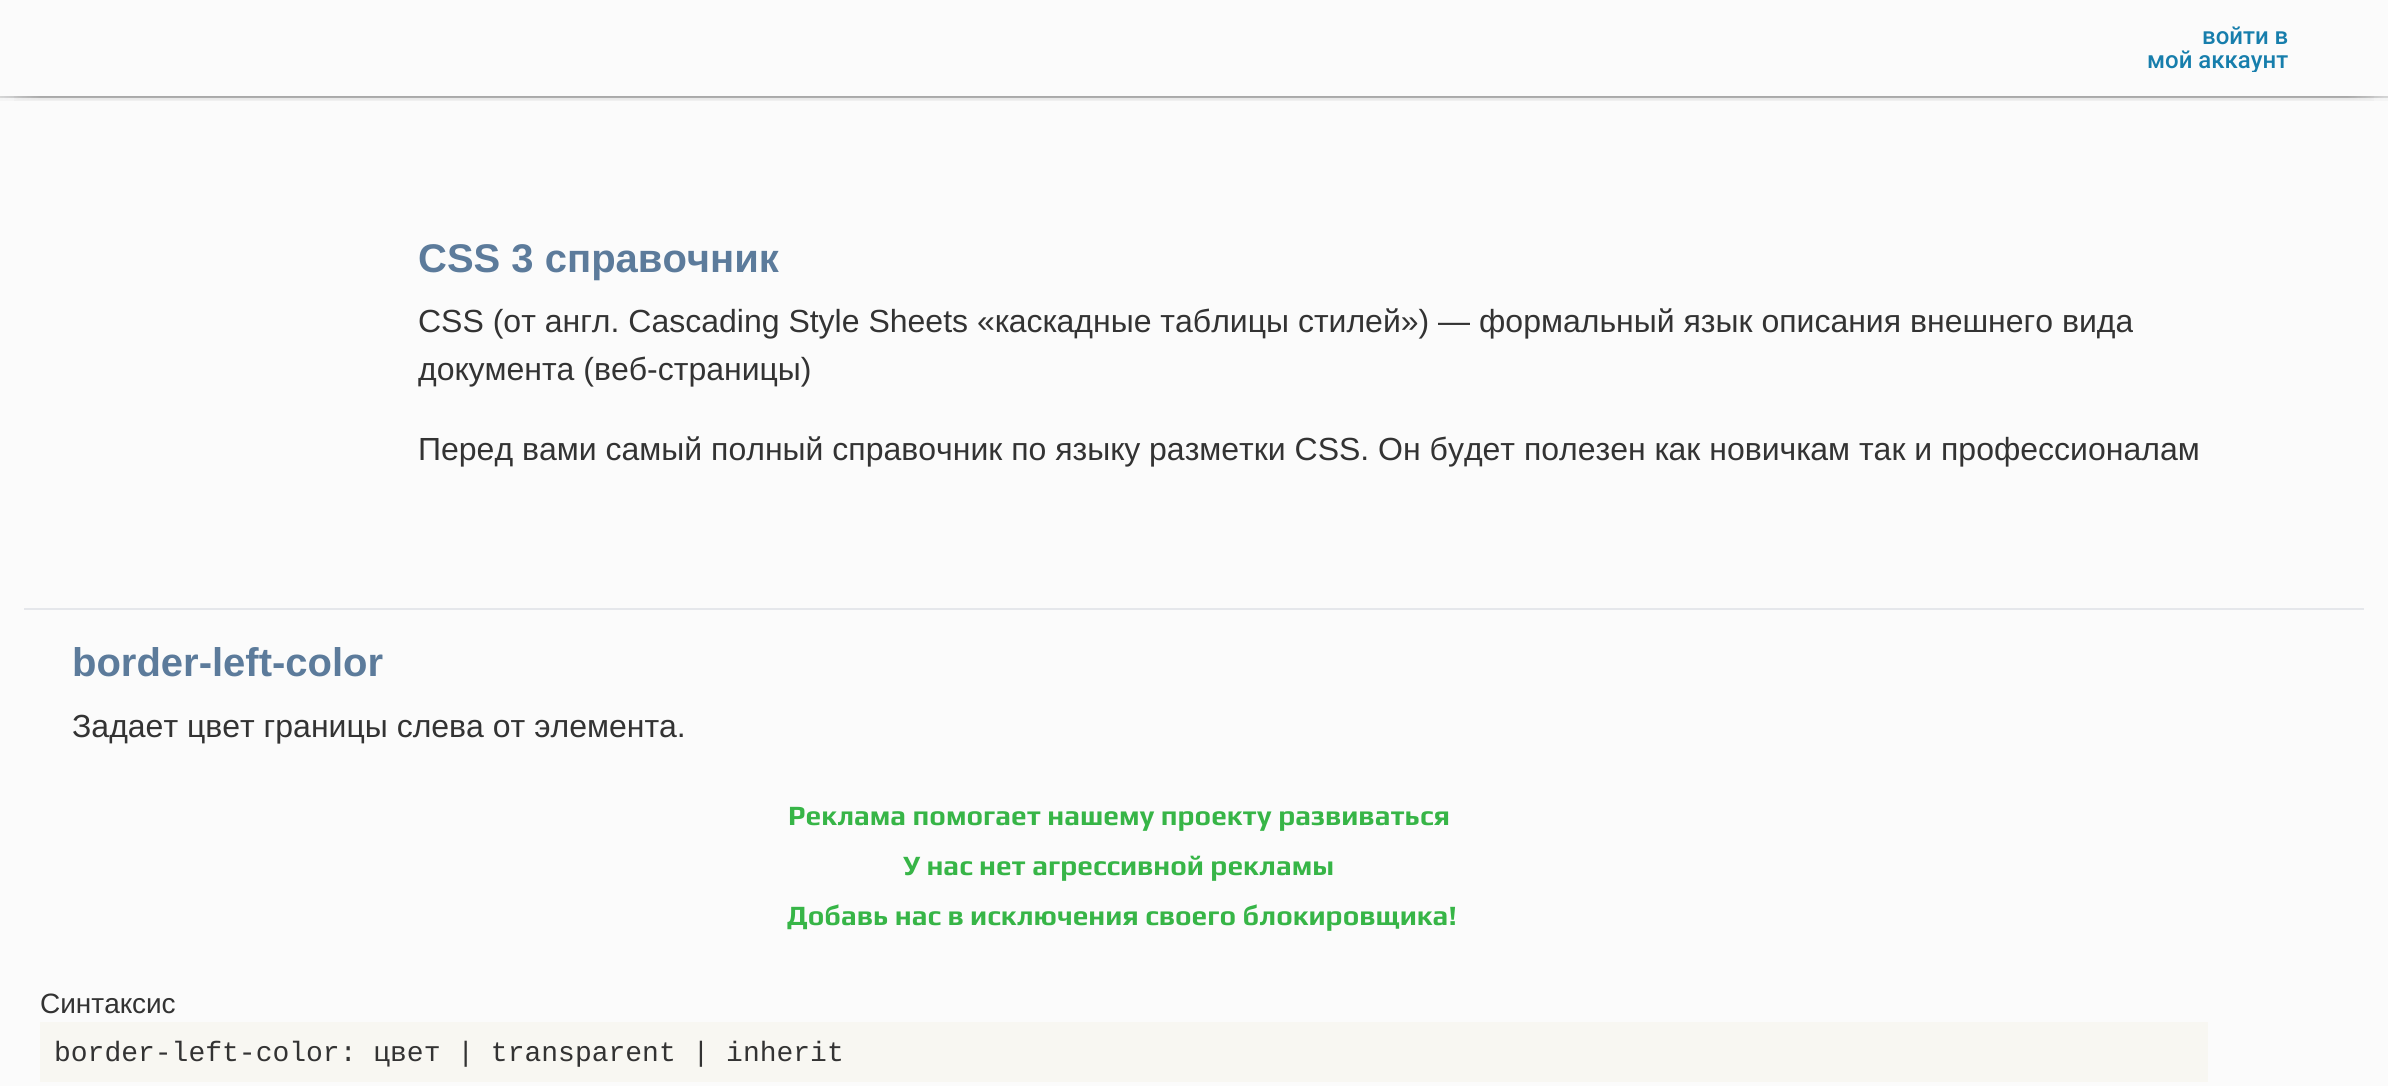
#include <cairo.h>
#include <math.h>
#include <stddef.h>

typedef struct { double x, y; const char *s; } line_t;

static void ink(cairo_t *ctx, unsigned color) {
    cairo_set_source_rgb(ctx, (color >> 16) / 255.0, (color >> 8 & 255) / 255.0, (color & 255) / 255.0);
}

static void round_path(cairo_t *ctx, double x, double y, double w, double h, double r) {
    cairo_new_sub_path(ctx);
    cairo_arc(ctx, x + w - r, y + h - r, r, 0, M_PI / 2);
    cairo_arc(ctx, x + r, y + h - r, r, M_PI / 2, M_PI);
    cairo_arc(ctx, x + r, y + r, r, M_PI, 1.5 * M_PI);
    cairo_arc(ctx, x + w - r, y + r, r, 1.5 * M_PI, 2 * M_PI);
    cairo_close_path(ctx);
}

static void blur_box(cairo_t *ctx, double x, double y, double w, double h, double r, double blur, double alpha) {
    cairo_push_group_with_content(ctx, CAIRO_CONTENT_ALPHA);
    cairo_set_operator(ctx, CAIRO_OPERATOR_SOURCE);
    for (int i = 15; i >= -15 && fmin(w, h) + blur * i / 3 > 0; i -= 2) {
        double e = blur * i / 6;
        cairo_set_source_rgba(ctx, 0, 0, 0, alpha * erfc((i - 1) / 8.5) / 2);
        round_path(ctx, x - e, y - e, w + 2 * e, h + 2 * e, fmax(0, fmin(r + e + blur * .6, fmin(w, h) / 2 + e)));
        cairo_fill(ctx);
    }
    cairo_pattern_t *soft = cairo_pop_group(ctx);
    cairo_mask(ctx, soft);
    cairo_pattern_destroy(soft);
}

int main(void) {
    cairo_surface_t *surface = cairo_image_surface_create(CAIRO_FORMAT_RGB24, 2388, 1086);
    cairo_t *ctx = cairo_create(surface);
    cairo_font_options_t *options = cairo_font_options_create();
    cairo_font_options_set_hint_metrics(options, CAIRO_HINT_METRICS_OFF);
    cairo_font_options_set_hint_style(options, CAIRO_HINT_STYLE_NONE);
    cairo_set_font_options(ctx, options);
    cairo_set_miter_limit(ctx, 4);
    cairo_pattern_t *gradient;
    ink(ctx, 0xFBFBFB);
    cairo_paint(ctx);
    cairo_save(ctx);
    cairo_rectangle(ctx, 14, 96, 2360, 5);
    cairo_clip(ctx);
    ink(ctx, 0x000000);
    blur_box(ctx, 16, 30, 2356, 64, 0, 7, 0.14);
    cairo_restore(ctx);
    cairo_select_font_face(ctx, "Roboto Medium", CAIRO_FONT_SLANT_NORMAL, CAIRO_FONT_WEIGHT_NORMAL);
    cairo_set_font_size(ctx, 24);
    ink(ctx, 0x177EAC);
    cairo_move_to(ctx, 2202, 44);
    cairo_show_text(ctx, "войти в");
    cairo_save(ctx);
    cairo_rectangle(ctx, 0, 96, 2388, 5);
    cairo_clip(ctx);
    ink(ctx, 0x000000);
    blur_box(ctx, -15, 68, 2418, 28, 0, 5, 0.14);
    cairo_restore(ctx);
    cairo_save(ctx);
    cairo_rectangle(ctx, 2146, 24, 142, 48);
    cairo_clip(ctx);
    cairo_move_to(ctx, 2147, 68);
    cairo_show_text(ctx, "мой аккаунт");
    cairo_restore(ctx);
    cairo_save(ctx);
    cairo_rectangle(ctx, 0, 96, 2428, 8);
    cairo_clip(ctx);
    cairo_set_source_rgba(ctx, 0, 0, 0, 0.12);
    cairo_set_fill_rule(ctx, CAIRO_FILL_RULE_EVEN_ODD);
    cairo_new_path(ctx);
    cairo_move_to(ctx, -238, -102);
    cairo_line_to(ctx, 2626, -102);
    cairo_line_to(ctx, 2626, 302);
    cairo_line_to(ctx, -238, 302);
    cairo_close_path(ctx);
    cairo_move_to(ctx, -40, 98);
    cairo_line_to(ctx, 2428, 98);
    cairo_line_to(ctx, 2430, 99);
    cairo_curve_to(ctx, 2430, 100, 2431, 110, 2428, 110);
    cairo_line_to(ctx, -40, 110);
    cairo_curve_to(ctx, -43, 110, -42, 106, -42, 105);
    cairo_curve_to(ctx, -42, 103, -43, 98, -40, 98);
    cairo_close_path(ctx);
    cairo_fill(ctx);
    cairo_restore(ctx);
    cairo_set_source_rgba(ctx, 0, 0, 0, 0.14);
    cairo_rectangle(ctx, 0, 96, 2388, 2);
    cairo_fill(ctx);
    gradient = cairo_pattern_create_linear(-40, 98, 40, 98);
    cairo_pattern_add_color_stop_rgba(gradient, 0, 0.973, 0.976, 0.98, 1);
    cairo_pattern_add_color_stop_rgba(gradient, 1, 0.973, 0.976, 0.98, 0);
    cairo_set_source(ctx, gradient);
    cairo_pattern_destroy(gradient);
    cairo_rectangle(ctx, 0, 96, 40, 4);
    cairo_fill(ctx);
    gradient = cairo_pattern_create_linear(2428, 98, 2348, 98);
    cairo_pattern_add_color_stop_rgba(gradient, 0, 0.973, 0.976, 0.98, 1);
    cairo_pattern_add_color_stop_rgba(gradient, 1, 0.973, 0.976, 0.98, 0);
    cairo_set_source(ctx, gradient);
    cairo_pattern_destroy(gradient);
    cairo_rectangle(ctx, 2348, 96, 40, 4);
    cairo_fill(ctx);
    ink(ctx, 0xE5E7EB);
    cairo_rectangle(ctx, 24, 608, 2340, 2);
    cairo_fill(ctx);
    cairo_select_font_face(ctx, "Liberation Sans", CAIRO_FONT_SLANT_NORMAL, CAIRO_FONT_WEIGHT_BOLD);
    cairo_set_font_size(ctx, 40);
    ink(ctx, 0x5C7B9B);
    cairo_move_to(ctx, 418, 272);
    cairo_show_text(ctx, "CSS 3 справочник");
    cairo_select_font_face(ctx, "Liberation Sans", CAIRO_FONT_SLANT_NORMAL, CAIRO_FONT_WEIGHT_NORMAL);
    cairo_set_font_size(ctx, 32);
    ink(ctx, 0x333333);
    {
        static const line_t items[] = {
            {418, 332, "CSS (от англ. Cascading Style Sheets «каскадные таблицы стилей») — формальный язык описания внешнего вида"},
            {418, 380, "документа (веб-страницы)"},
            {418, 460, "Перед вами самый полный справочник по языку разметки CSS. Он будет полезен как новичкам так и профессионалам"},
        };
        for (size_t i = 0; i < sizeof items / sizeof *items; i++) {
            cairo_move_to(ctx, items[i].x, items[i].y);
            cairo_show_text(ctx, items[i].s);
        }
    }
    cairo_select_font_face(ctx, "Liberation Sans", CAIRO_FONT_SLANT_NORMAL, CAIRO_FONT_WEIGHT_BOLD);
    cairo_set_font_size(ctx, 40);
    ink(ctx, 0x5C7B9B);
    cairo_move_to(ctx, 72, 676);
    cairo_show_text(ctx, "border-left-color");
    cairo_select_font_face(ctx, "Liberation Sans", CAIRO_FONT_SLANT_NORMAL, CAIRO_FONT_WEIGHT_NORMAL);
    cairo_set_font_size(ctx, 32);
    ink(ctx, 0x333333);
    cairo_move_to(ctx, 72, 737);
    cairo_show_text(ctx, "Задает цвет границы слева от элемента.");
    cairo_select_font_face(ctx, "Play", CAIRO_FONT_SLANT_NORMAL, CAIRO_FONT_WEIGHT_BOLD);
    cairo_set_font_size(ctx, 28);
    ink(ctx, 0x37B547);
    {
        static const line_t items[] = {
            {788, 825, "Реклама помогает нашему проекту развиваться"},
            {903, 875, "У нас нет агрессивной рекламы"},
            {787, 925, "Добавь нас в исключения своего блокировщика!"},
        };
        for (size_t i = 0; i < sizeof items / sizeof *items; i++) {
            cairo_move_to(ctx, items[i].x, items[i].y);
            cairo_show_text(ctx, items[i].s);
        }
    }
    cairo_select_font_face(ctx, "Liberation Sans", CAIRO_FONT_SLANT_NORMAL, CAIRO_FONT_WEIGHT_NORMAL);
    ink(ctx, 0x333333);
    cairo_move_to(ctx, 40, 1013);
    cairo_show_text(ctx, "Синтаксис");
    ink(ctx, 0xF8F7F2);
    cairo_rectangle(ctx, 40, 1022, 2168, 60);
    cairo_fill(ctx);
    cairo_select_font_face(ctx, "Liberation Mono", CAIRO_FONT_SLANT_NORMAL, CAIRO_FONT_WEIGHT_NORMAL);
    ink(ctx, 0x333333);
    cairo_move_to(ctx, 54, 1061);
    cairo_show_text(ctx, "border-left-color: цвет | transparent | inherit");
    cairo_surface_write_to_png(surface, "image.png");
    cairo_font_options_destroy(options);
    cairo_destroy(ctx);
    cairo_surface_destroy(surface);
    return 0;
}
